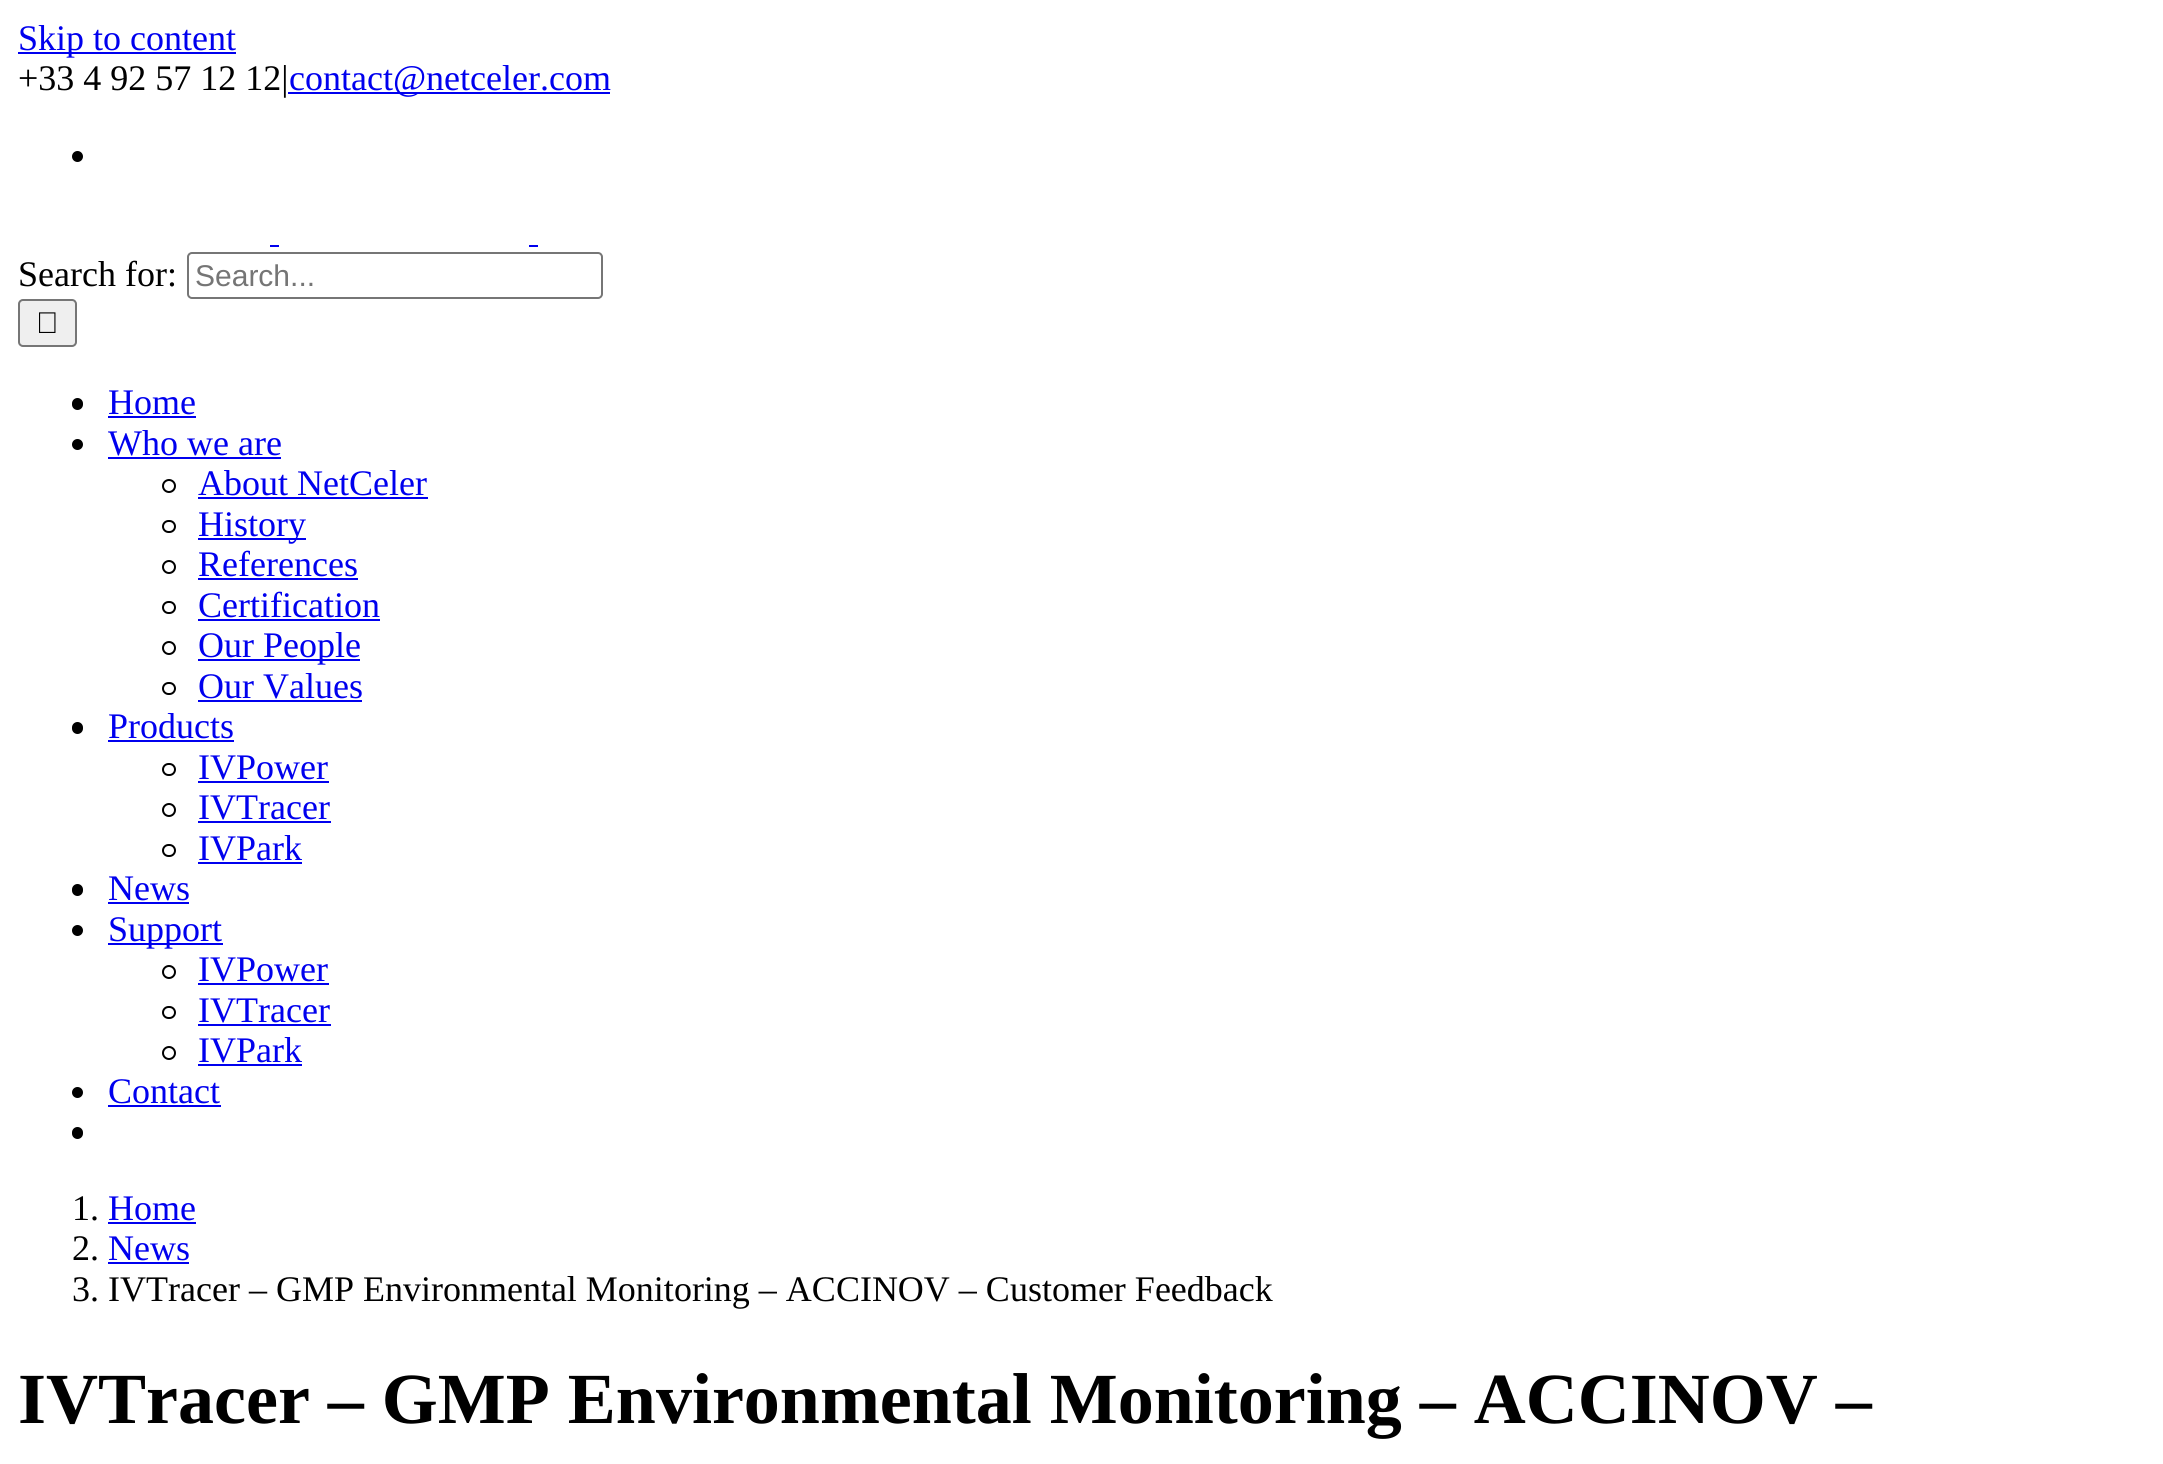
#include <cairo.h>
#include <math.h>
#include <stddef.h>


static void ink(cairo_t *ctx, unsigned color) {
    cairo_set_source_rgb(ctx, (color >> 16) / 255.0, (color >> 8 & 255) / 255.0, (color & 255) / 255.0);
}

static void round_path(cairo_t *ctx, double x, double y, double w, double h, double r) {
    cairo_new_sub_path(ctx);
    cairo_arc(ctx, x + w - r, y + h - r, r, 0, M_PI / 2);
    cairo_arc(ctx, x + r, y + h - r, r, M_PI / 2, M_PI);
    cairo_arc(ctx, x + r, y + r, r, M_PI, 1.5 * M_PI);
    cairo_arc(ctx, x + w - r, y + r, r, 1.5 * M_PI, 2 * M_PI);
    cairo_close_path(ctx);
}

static void paste(cairo_t *ctx, const char *path, double x, double y, double w, double h) {
    cairo_surface_t *image = cairo_image_surface_create_from_png(path);
    cairo_save(ctx);
    cairo_set_source_surface(ctx, image, x, y);
    cairo_rectangle(ctx, x, y, w, h);
    cairo_fill(ctx);
    cairo_restore(ctx);
    cairo_surface_destroy(image);
}

int main(void) {
    cairo_surface_t *surface = cairo_image_surface_create(CAIRO_FORMAT_RGB24, 2163, 1464);
    cairo_t *ctx = cairo_create(surface);
    cairo_font_options_t *options = cairo_font_options_create();
    cairo_font_options_set_hint_metrics(options, CAIRO_HINT_METRICS_OFF);
    cairo_font_options_set_hint_style(options, CAIRO_HINT_STYLE_NONE);
    cairo_set_font_options(ctx, options);
    cairo_set_miter_limit(ctx, 4);
    ink(ctx, 0xFFFFFF);
    cairo_paint(ctx);
    ink(ctx, 0x0000EE);
    cairo_rectangle(ctx, 18, 52, 218, 2);
    cairo_fill(ctx);
    cairo_select_font_face(ctx, "Liberation Serif", CAIRO_FONT_SLANT_NORMAL, CAIRO_FONT_WEIGHT_NORMAL);
    cairo_set_font_size(ctx, 36);
    cairo_move_to(ctx, 18, 50);
    cairo_show_text(ctx, "Skip to content");
    ink(ctx, 0x000000);
    cairo_move_to(ctx, 18, 90);
    cairo_show_text(ctx, "+33 4 92 57 12 12|");
    ink(ctx, 0x0000EE);
    cairo_rectangle(ctx, 288, 92, 322, 2);
    cairo_fill(ctx);
    cairo_move_to(ctx, 289, 90);
    cairo_show_text(ctx, "contact@netceler.com");
    ink(ctx, 0x000000);
    cairo_new_path(ctx);
    cairo_arc(ctx, 77.5, 156.5, 5.5, 0, 2 * M_PI);
    cairo_fill(ctx);
    ink(ctx, 0x0000EE);
    cairo_rectangle(ctx, 270, 245, 9, 2);
    cairo_fill(ctx);
    cairo_rectangle(ctx, 529, 245, 9, 2);
    cairo_fill(ctx);
    ink(ctx, 0x000000);
    cairo_move_to(ctx, 18, 286);
    cairo_show_text(ctx, "Search for:");
    round_path(ctx, 188, 253, 414, 45, 4);
    ink(ctx, 0x767676);
    cairo_stroke(ctx);
    cairo_select_font_face(ctx, "Liberation Sans", CAIRO_FONT_SLANT_NORMAL, CAIRO_FONT_WEIGHT_NORMAL);
    cairo_set_font_size(ctx, 30);
    ink(ctx, 0x757575);
    cairo_move_to(ctx, 195, 286);
    cairo_show_text(ctx, "Search...");
    ink(ctx, 0xEFEFEF);
    round_path(ctx, 19, 300, 57, 46, 4);
    cairo_fill_preserve(ctx);
    ink(ctx, 0x767676);
    cairo_stroke(ctx);
    paste(ctx, "media/1.png", 39, 312, 17, 21);
    ink(ctx, 0x000000);
    round_path(ctx, 72, 398, 11, 12, 5.5);
    cairo_fill(ctx);
    cairo_select_font_face(ctx, "Liberation Serif", CAIRO_FONT_SLANT_NORMAL, CAIRO_FONT_WEIGHT_NORMAL);
    cairo_set_font_size(ctx, 36);
    ink(ctx, 0x0000EE);
    cairo_move_to(ctx, 108, 414);
    cairo_show_text(ctx, "Home");
    cairo_rectangle(ctx, 108, 416, 88, 2);
    cairo_fill(ctx);
    ink(ctx, 0x000000);
    cairo_arc(ctx, 77.5, 444.5, 5.5, 0, 2 * M_PI);
    cairo_fill(ctx);
    ink(ctx, 0x0000EE);
    cairo_move_to(ctx, 108, 455);
    cairo_show_text(ctx, "Who we are");
    cairo_rectangle(ctx, 108, 457, 173, 2);
    cairo_fill(ctx);
    cairo_arc(ctx, 169, 486, 6, 0, 2 * M_PI);
    ink(ctx, 0x000000);
    cairo_stroke(ctx);
    ink(ctx, 0x0000EE);
    cairo_move_to(ctx, 198, 495);
    cairo_show_text(ctx, "About NetCeler");
    cairo_rectangle(ctx, 198, 497, 230, 2);
    cairo_fill(ctx);
    round_path(ctx, 163, 521, 12, 11, 5.5);
    ink(ctx, 0x000000);
    cairo_stroke(ctx);
    ink(ctx, 0x0000EE);
    cairo_rectangle(ctx, 198, 538, 108, 2);
    cairo_fill(ctx);
    cairo_move_to(ctx, 198, 536);
    cairo_show_text(ctx, "History");
    cairo_new_path(ctx);
    cairo_arc(ctx, 169, 567, 6, 0, 2 * M_PI);
    ink(ctx, 0x000000);
    cairo_stroke(ctx);
    ink(ctx, 0x0000EE);
    cairo_move_to(ctx, 198, 576);
    cairo_show_text(ctx, "References");
    cairo_rectangle(ctx, 198, 578, 160, 2);
    cairo_fill(ctx);
    round_path(ctx, 163, 602, 12, 11, 5.5);
    ink(ctx, 0x000000);
    cairo_stroke(ctx);
    ink(ctx, 0x0000EE);
    cairo_move_to(ctx, 198, 617);
    cairo_show_text(ctx, "Certification");
    cairo_rectangle(ctx, 198, 619, 182, 2);
    cairo_fill(ctx);
    cairo_arc(ctx, 169, 648, 6, 0, 2 * M_PI);
    ink(ctx, 0x000000);
    cairo_stroke(ctx);
    ink(ctx, 0x0000EE);
    cairo_rectangle(ctx, 198, 659, 162, 2);
    cairo_fill(ctx);
    cairo_move_to(ctx, 198, 657);
    cairo_show_text(ctx, "Our People");
    round_path(ctx, 163, 683, 12, 11, 5.5);
    ink(ctx, 0x000000);
    cairo_stroke(ctx);
    ink(ctx, 0x0000EE);
    cairo_move_to(ctx, 198, 698);
    cairo_show_text(ctx, "Our Values");
    cairo_rectangle(ctx, 198, 700, 164, 2);
    cairo_fill(ctx);
    ink(ctx, 0x000000);
    round_path(ctx, 72, 722, 11, 12, 5.5);
    cairo_fill(ctx);
    ink(ctx, 0x0000EE);
    cairo_move_to(ctx, 108, 738);
    cairo_show_text(ctx, "Products");
    cairo_rectangle(ctx, 108, 740, 126, 2);
    cairo_fill(ctx);
    round_path(ctx, 163, 764, 12, 11, 5.5);
    ink(ctx, 0x000000);
    cairo_stroke(ctx);
    ink(ctx, 0x0000EE);
    cairo_move_to(ctx, 198, 779);
    cairo_show_text(ctx, "IVPower");
    cairo_rectangle(ctx, 198, 781, 131, 2);
    cairo_fill(ctx);
    cairo_arc(ctx, 169, 810, 6, 0, 2 * M_PI);
    ink(ctx, 0x000000);
    cairo_stroke(ctx);
    ink(ctx, 0x0000EE);
    cairo_move_to(ctx, 198, 819);
    cairo_show_text(ctx, "IVTracer");
    cairo_rectangle(ctx, 198, 821, 133, 2);
    cairo_fill(ctx);
    round_path(ctx, 163, 845, 12, 11, 5.5);
    ink(ctx, 0x000000);
    cairo_stroke(ctx);
    ink(ctx, 0x0000EE);
    cairo_move_to(ctx, 198, 860);
    cairo_show_text(ctx, "IVPark");
    cairo_rectangle(ctx, 198, 862, 104, 2);
    cairo_fill(ctx);
    ink(ctx, 0x000000);
    round_path(ctx, 72, 884, 11, 12, 5.5);
    cairo_fill(ctx);
    ink(ctx, 0x0000EE);
    cairo_move_to(ctx, 108, 900);
    cairo_show_text(ctx, "News");
    cairo_rectangle(ctx, 108, 902, 81, 2);
    cairo_fill(ctx);
    ink(ctx, 0x000000);
    cairo_arc(ctx, 77.5, 930.5, 5.5, 0, 2 * M_PI);
    cairo_fill(ctx);
    ink(ctx, 0x0000EE);
    cairo_rectangle(ctx, 108, 943, 115, 2);
    cairo_fill(ctx);
    cairo_move_to(ctx, 108, 941);
    cairo_show_text(ctx, "Support");
    cairo_new_path(ctx);
    cairo_arc(ctx, 169, 972, 6, 0, 2 * M_PI);
    ink(ctx, 0x000000);
    cairo_stroke(ctx);
    ink(ctx, 0x0000EE);
    cairo_move_to(ctx, 198, 981);
    cairo_show_text(ctx, "IVPower");
    cairo_rectangle(ctx, 198, 983, 131, 2);
    cairo_fill(ctx);
    round_path(ctx, 163, 1007, 12, 11, 5.5);
    ink(ctx, 0x000000);
    cairo_stroke(ctx);
    ink(ctx, 0x0000EE);
    cairo_move_to(ctx, 198, 1022);
    cairo_show_text(ctx, "IVTracer");
    cairo_rectangle(ctx, 198, 1024, 133, 2);
    cairo_fill(ctx);
    cairo_arc(ctx, 169, 1053, 6, 0, 2 * M_PI);
    ink(ctx, 0x000000);
    cairo_stroke(ctx);
    ink(ctx, 0x0000EE);
    cairo_move_to(ctx, 198, 1062);
    cairo_show_text(ctx, "IVPark");
    cairo_rectangle(ctx, 198, 1064, 104, 2);
    cairo_fill(ctx);
    ink(ctx, 0x000000);
    cairo_arc(ctx, 77.5, 1092.5, 5.5, 0, 2 * M_PI);
    cairo_fill(ctx);
    ink(ctx, 0x0000EE);
    cairo_move_to(ctx, 108, 1103);
    cairo_show_text(ctx, "Contact");
    cairo_rectangle(ctx, 108, 1105, 113, 2);
    cairo_fill(ctx);
    ink(ctx, 0x000000);
    round_path(ctx, 72, 1127, 11, 12, 5.5);
    cairo_fill(ctx);
    cairo_move_to(ctx, 72, 1220);
    cairo_show_text(ctx, "1.");
    ink(ctx, 0x0000EE);
    cairo_move_to(ctx, 108, 1220);
    cairo_show_text(ctx, "Home");
    cairo_rectangle(ctx, 108, 1222, 88, 2);
    cairo_fill(ctx);
    ink(ctx, 0x000000);
    cairo_move_to(ctx, 72, 1260);
    cairo_show_text(ctx, "2.");
    ink(ctx, 0x0000EE);
    cairo_move_to(ctx, 108, 1260);
    cairo_show_text(ctx, "News");
    cairo_rectangle(ctx, 108, 1262, 81, 2);
    cairo_fill(ctx);
    ink(ctx, 0x000000);
    cairo_move_to(ctx, 72, 1301);
    cairo_show_text(ctx, "3. IVTracer – GMP Environmental Monitoring – ACCINOV – Customer Feedback");
    cairo_select_font_face(ctx, "Liberation Serif", CAIRO_FONT_SLANT_NORMAL, CAIRO_FONT_WEIGHT_BOLD);
    cairo_set_font_size(ctx, 72);
    cairo_move_to(ctx, 18, 1423);
    cairo_show_text(ctx, "IVTracer – GMP Environmental Monitoring – ACCINOV –");
    cairo_surface_write_to_png(surface, "image.png");
    cairo_font_options_destroy(options);
    cairo_destroy(ctx);
    cairo_surface_destroy(surface);
    return 0;
}
